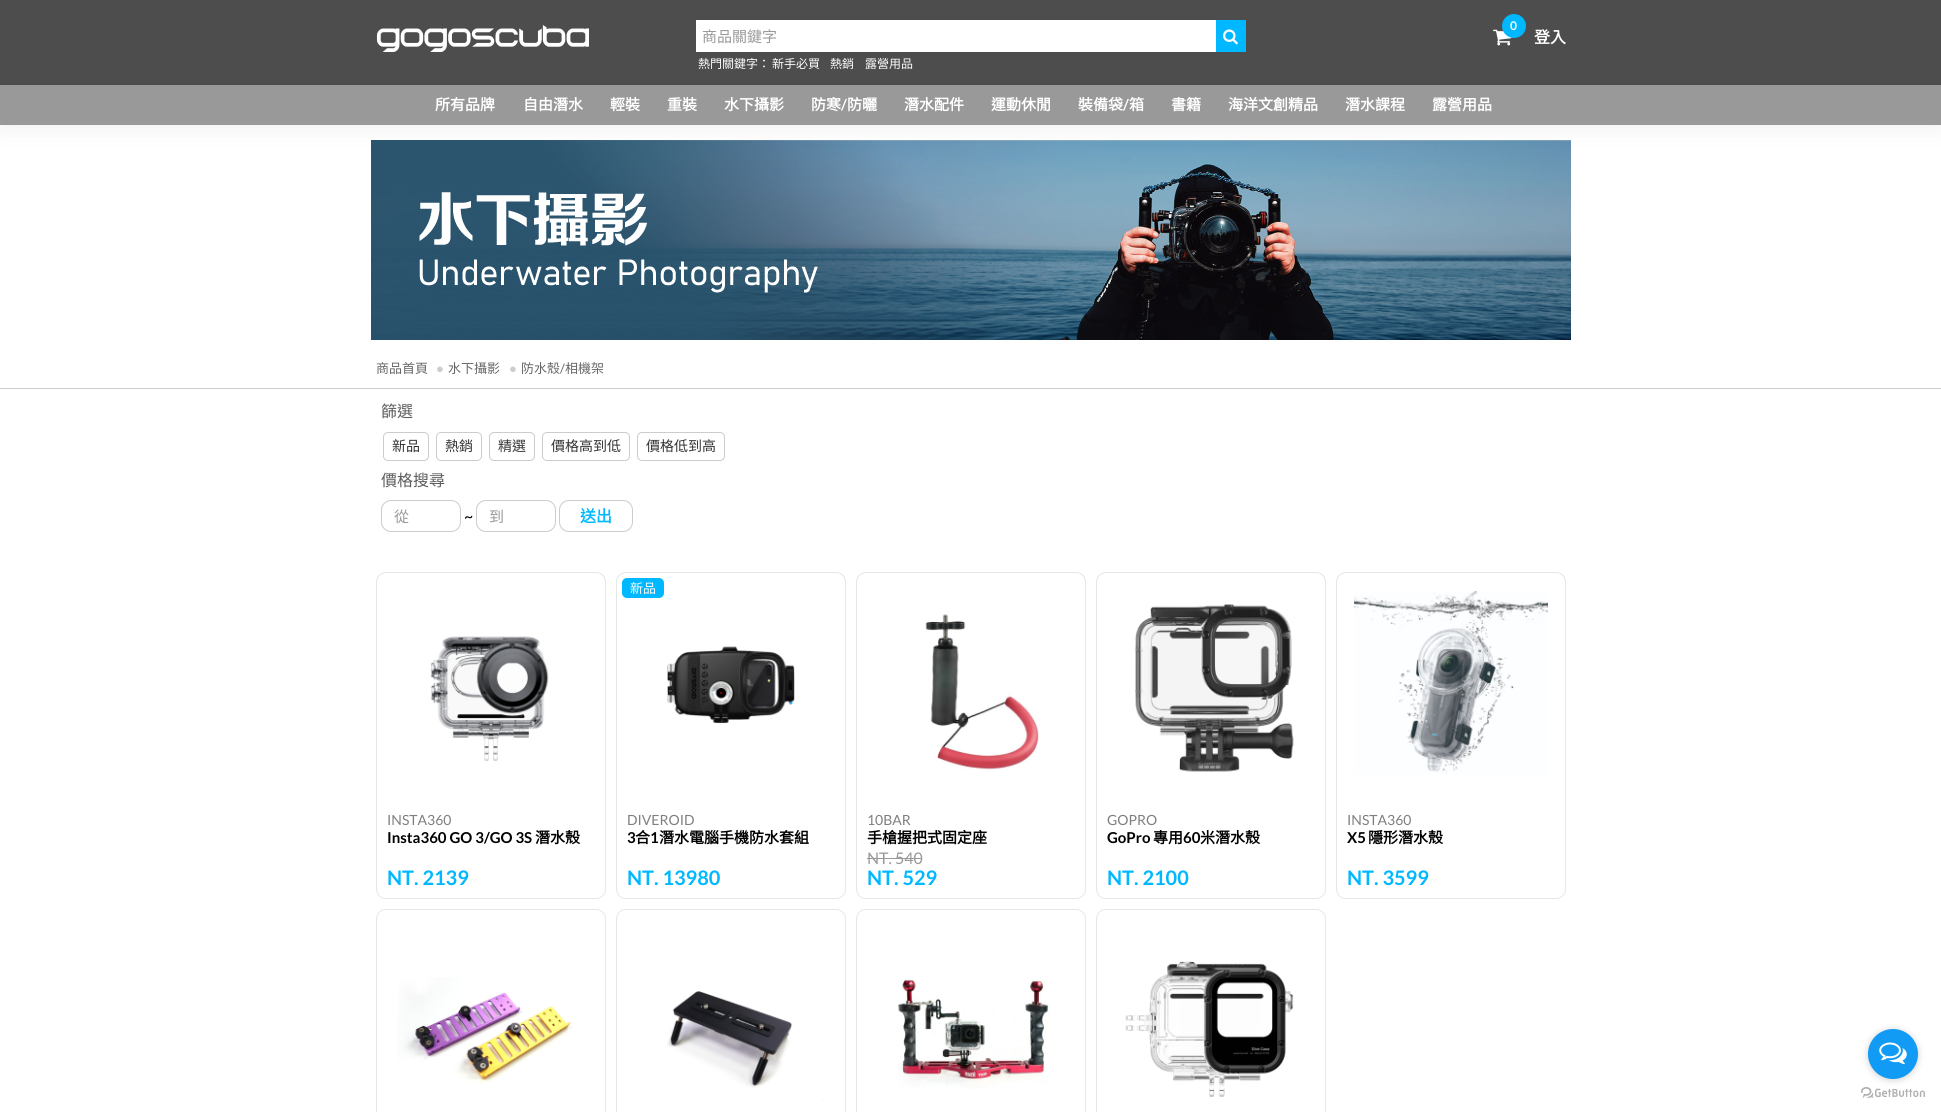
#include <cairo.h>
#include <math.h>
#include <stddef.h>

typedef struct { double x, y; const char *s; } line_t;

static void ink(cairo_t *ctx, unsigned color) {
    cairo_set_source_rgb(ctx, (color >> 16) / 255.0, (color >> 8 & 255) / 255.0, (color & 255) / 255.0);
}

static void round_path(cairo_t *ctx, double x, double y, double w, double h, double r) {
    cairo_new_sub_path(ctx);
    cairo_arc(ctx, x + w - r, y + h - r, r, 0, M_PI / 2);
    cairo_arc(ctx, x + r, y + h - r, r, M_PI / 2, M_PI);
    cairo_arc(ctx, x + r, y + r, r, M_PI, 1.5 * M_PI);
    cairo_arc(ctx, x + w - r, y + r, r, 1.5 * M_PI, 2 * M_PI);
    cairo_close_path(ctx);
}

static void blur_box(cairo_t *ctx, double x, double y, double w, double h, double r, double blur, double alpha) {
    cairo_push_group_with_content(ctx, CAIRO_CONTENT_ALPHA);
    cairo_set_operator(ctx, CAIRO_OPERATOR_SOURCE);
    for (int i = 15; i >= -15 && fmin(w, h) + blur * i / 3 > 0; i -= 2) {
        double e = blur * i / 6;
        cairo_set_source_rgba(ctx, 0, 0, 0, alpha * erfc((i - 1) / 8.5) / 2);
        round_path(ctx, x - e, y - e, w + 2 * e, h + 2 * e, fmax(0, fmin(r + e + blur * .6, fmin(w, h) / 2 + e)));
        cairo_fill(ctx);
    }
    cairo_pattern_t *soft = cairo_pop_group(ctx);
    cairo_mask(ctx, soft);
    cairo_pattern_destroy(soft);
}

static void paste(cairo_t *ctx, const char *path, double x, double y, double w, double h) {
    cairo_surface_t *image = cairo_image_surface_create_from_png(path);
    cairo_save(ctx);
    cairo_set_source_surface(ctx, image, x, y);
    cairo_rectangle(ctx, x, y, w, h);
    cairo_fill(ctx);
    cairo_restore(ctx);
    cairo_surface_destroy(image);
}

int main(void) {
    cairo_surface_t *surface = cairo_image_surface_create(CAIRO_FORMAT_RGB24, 1941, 1112);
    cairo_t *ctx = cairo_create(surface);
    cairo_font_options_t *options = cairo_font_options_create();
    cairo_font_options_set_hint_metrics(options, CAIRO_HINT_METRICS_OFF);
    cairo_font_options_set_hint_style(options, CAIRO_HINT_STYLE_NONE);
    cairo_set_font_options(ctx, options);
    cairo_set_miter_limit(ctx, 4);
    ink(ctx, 0xFFFFFF);
    cairo_paint(ctx);
    paste(ctx, "media/4.png", 371, 140, 1200, 200);
    ink(ctx, 0x000000);
    blur_box(ctx, 0, 0, 1941, 120, 0, 15, 0.1);
    ink(ctx, 0x4D4D4D);
    cairo_rectangle(ctx, 0, 0, 1941, 85);
    cairo_fill(ctx);
    paste(ctx, "media/1.png", 376, 25, 213, 27);
    ink(ctx, 0xFFFFFF);
    cairo_rectangle(ctx, 696, 20, 520, 32);
    cairo_fill(ctx);
    cairo_select_font_face(ctx, "Noto Sans CJK TC", CAIRO_FONT_SLANT_NORMAL, CAIRO_FONT_WEIGHT_NORMAL);
    cairo_set_font_size(ctx, 15);
    ink(ctx, 0x999999);
    cairo_move_to(ctx, 702, 42);
    cairo_show_text(ctx, "商品關鍵字");
    ink(ctx, 0x00B8FF);
    cairo_rectangle(ctx, 1216, 20, 30, 32);
    cairo_fill(ctx);
    paste(ctx, "media/2.png", 1223, 29, 15, 16);
    cairo_set_font_size(ctx, 12);
    ink(ctx, 0xFFFFFF);
    {
        static const line_t items[] = {
            {698, 68, "熱門關鍵字："},
            {772, 68, "新手必買"},
            {830, 68, "熱銷"},
            {865, 68, "露營用品"},
        };
        for (size_t i = 0; i < sizeof items / sizeof *items; i++) {
            cairo_move_to(ctx, items[i].x, items[i].y);
            cairo_show_text(ctx, items[i].s);
        }
    }
    paste(ctx, "media/3.png", 1493, 29, 19, 17);
    ink(ctx, 0x00B8FF);
    cairo_arc(ctx, 1514, 26, 12, 0, 2 * M_PI);
    cairo_fill(ctx);
    cairo_select_font_face(ctx, "Lato", CAIRO_FONT_SLANT_NORMAL, CAIRO_FONT_WEIGHT_BOLD);
    ink(ctx, 0xFFFFFF);
    cairo_move_to(ctx, 1510, 30);
    cairo_show_text(ctx, "0");
    cairo_select_font_face(ctx, "Noto Sans CJK TC", CAIRO_FONT_SLANT_NORMAL, CAIRO_FONT_WEIGHT_BOLD);
    cairo_set_font_size(ctx, 16);
    cairo_move_to(ctx, 1534, 43);
    cairo_show_text(ctx, "登入");
    ink(ctx, 0x999999);
    cairo_rectangle(ctx, 0, 85, 1941, 40);
    cairo_fill(ctx);
    cairo_set_font_size(ctx, 15);
    ink(ctx, 0xFFFFFF);
    {
        static const line_t items[] = {
            {435, 110, "所有品牌"},
            {523, 110, "自由潛水"},
            {610, 110, "輕裝"},
            {667, 110, "重裝"},
            {724, 110, "水下攝影"},
            {811, 110, "防寒"},
        };
        for (size_t i = 0; i < sizeof items / sizeof *items; i++) {
            cairo_move_to(ctx, items[i].x, items[i].y);
            cairo_show_text(ctx, items[i].s);
        }
    }
    cairo_select_font_face(ctx, "Lato", CAIRO_FONT_SLANT_NORMAL, CAIRO_FONT_WEIGHT_BOLD);
    cairo_move_to(ctx, 841, 110);
    cairo_show_text(ctx, "/");
    cairo_select_font_face(ctx, "Noto Sans CJK TC", CAIRO_FONT_SLANT_NORMAL, CAIRO_FONT_WEIGHT_BOLD);
    {
        static const line_t items[] = {
            {847, 110, "防曬"},
            {904, 110, "潛水配件"},
            {991, 110, "運動休閒"},
            {1078, 110, "裝備袋"},
        };
        for (size_t i = 0; i < sizeof items / sizeof *items; i++) {
            cairo_move_to(ctx, items[i].x, items[i].y);
            cairo_show_text(ctx, items[i].s);
        }
    }
    cairo_select_font_face(ctx, "Lato", CAIRO_FONT_SLANT_NORMAL, CAIRO_FONT_WEIGHT_BOLD);
    cairo_move_to(ctx, 1123, 110);
    cairo_show_text(ctx, "/");
    cairo_select_font_face(ctx, "Noto Sans CJK TC", CAIRO_FONT_SLANT_NORMAL, CAIRO_FONT_WEIGHT_BOLD);
    {
        static const line_t items[] = {
            {1129, 110, "箱"},
            {1171, 110, "書籍"},
            {1228, 110, "海洋文創精品"},
            {1345, 110, "潛水課程"},
            {1432, 110, "露營用品"},
        };
        for (size_t i = 0; i < sizeof items / sizeof *items; i++) {
            cairo_move_to(ctx, items[i].x, items[i].y);
            cairo_show_text(ctx, items[i].s);
        }
    }
    ink(ctx, 0xCCCCCC);
    cairo_rectangle(ctx, 0, 388, 1941, 1);
    cairo_fill(ctx);
    cairo_select_font_face(ctx, "Noto Sans CJK TC", CAIRO_FONT_SLANT_NORMAL, CAIRO_FONT_WEIGHT_NORMAL);
    cairo_set_font_size(ctx, 13);
    ink(ctx, 0x666666);
    cairo_move_to(ctx, 376, 373);
    cairo_show_text(ctx, "商品首頁");
    cairo_select_font_face(ctx, "Liberation Sans", CAIRO_FONT_SLANT_NORMAL, CAIRO_FONT_WEIGHT_NORMAL);
    ink(ctx, 0xCCCCCC);
    cairo_move_to(ctx, 436, 373);
    cairo_show_text(ctx, "●");
    cairo_select_font_face(ctx, "Noto Sans CJK TC", CAIRO_FONT_SLANT_NORMAL, CAIRO_FONT_WEIGHT_NORMAL);
    ink(ctx, 0x666666);
    cairo_move_to(ctx, 448, 373);
    cairo_show_text(ctx, "水下攝影");
    cairo_select_font_face(ctx, "Liberation Sans", CAIRO_FONT_SLANT_NORMAL, CAIRO_FONT_WEIGHT_NORMAL);
    ink(ctx, 0xCCCCCC);
    cairo_move_to(ctx, 509, 373);
    cairo_show_text(ctx, "●");
    cairo_select_font_face(ctx, "Noto Sans CJK TC", CAIRO_FONT_SLANT_NORMAL, CAIRO_FONT_WEIGHT_NORMAL);
    ink(ctx, 0x666666);
    cairo_move_to(ctx, 521, 373);
    cairo_show_text(ctx, "防水殼");
    cairo_select_font_face(ctx, "Lato", CAIRO_FONT_SLANT_NORMAL, CAIRO_FONT_WEIGHT_NORMAL);
    cairo_move_to(ctx, 560, 373);
    cairo_show_text(ctx, "/");
    cairo_select_font_face(ctx, "Noto Sans CJK TC", CAIRO_FONT_SLANT_NORMAL, CAIRO_FONT_WEIGHT_NORMAL);
    cairo_move_to(ctx, 565, 373);
    cairo_show_text(ctx, "相機架");
    cairo_set_font_size(ctx, 16);
    ink(ctx, 0x5D5D5D);
    cairo_move_to(ctx, 381, 417);
    cairo_show_text(ctx, "篩選");
    round_path(ctx, 383.5, 432.5, 45, 28, 4.5);
    ink(ctx, 0xCCCCCC);
    cairo_set_line_width(ctx, 1);
    cairo_stroke(ctx);
    cairo_set_font_size(ctx, 14);
    ink(ctx, 0x333333);
    cairo_move_to(ctx, 392, 451);
    cairo_show_text(ctx, "新品");
    round_path(ctx, 436.5, 432.5, 45, 28, 4.5);
    ink(ctx, 0xCCCCCC);
    cairo_stroke(ctx);
    ink(ctx, 0x333333);
    cairo_move_to(ctx, 445, 451);
    cairo_show_text(ctx, "熱銷");
    round_path(ctx, 489.5, 432.5, 45, 28, 4.5);
    ink(ctx, 0xCCCCCC);
    cairo_stroke(ctx);
    ink(ctx, 0x333333);
    cairo_move_to(ctx, 498, 451);
    cairo_show_text(ctx, "精選");
    round_path(ctx, 542.5, 432.5, 87, 28, 4.5);
    ink(ctx, 0xCCCCCC);
    cairo_stroke(ctx);
    ink(ctx, 0x333333);
    cairo_move_to(ctx, 551, 451);
    cairo_show_text(ctx, "價格高到低");
    round_path(ctx, 637.5, 432.5, 87, 28, 4.5);
    ink(ctx, 0xCCCCCC);
    cairo_stroke(ctx);
    ink(ctx, 0x333333);
    cairo_move_to(ctx, 646, 451);
    cairo_show_text(ctx, "價格低到高");
    cairo_set_font_size(ctx, 16);
    ink(ctx, 0x5D5D5D);
    cairo_move_to(ctx, 381, 486);
    cairo_show_text(ctx, "價格搜尋");
    round_path(ctx, 381.5, 500.5, 79, 31, 9.5);
    ink(ctx, 0xCCCCCC);
    cairo_stroke(ctx);
    cairo_set_font_size(ctx, 15);
    ink(ctx, 0x999999);
    cairo_move_to(ctx, 394, 522);
    cairo_show_text(ctx, "從");
    cairo_select_font_face(ctx, "Lato", CAIRO_FONT_SLANT_NORMAL, CAIRO_FONT_WEIGHT_NORMAL);
    cairo_set_font_size(ctx, 16);
    ink(ctx, 0x000000);
    cairo_move_to(ctx, 464, 522);
    cairo_show_text(ctx, "~");
    round_path(ctx, 476.5, 500.5, 79, 31, 9.5);
    ink(ctx, 0xCCCCCC);
    cairo_stroke(ctx);
    cairo_select_font_face(ctx, "Noto Sans CJK TC", CAIRO_FONT_SLANT_NORMAL, CAIRO_FONT_WEIGHT_NORMAL);
    cairo_set_font_size(ctx, 15);
    ink(ctx, 0x999999);
    cairo_move_to(ctx, 489, 522);
    cairo_show_text(ctx, "到");
    round_path(ctx, 559.5, 500.5, 73, 31, 9.5);
    ink(ctx, 0xCCCCCC);
    cairo_stroke(ctx);
    cairo_select_font_face(ctx, "Noto Sans CJK TC", CAIRO_FONT_SLANT_NORMAL, CAIRO_FONT_WEIGHT_BOLD);
    cairo_set_font_size(ctx, 16);
    ink(ctx, 0x00B8FF);
    cairo_move_to(ctx, 580, 522);
    cairo_show_text(ctx, "送出");
    round_path(ctx, 376.5, 572.5, 229, 326, 9.5);
    ink(ctx, 0xE6E6E6);
    cairo_stroke(ctx);
    paste(ctx, "media/5.png", 430, 636, 119, 125);
    cairo_select_font_face(ctx, "Lato", CAIRO_FONT_SLANT_NORMAL, CAIRO_FONT_WEIGHT_NORMAL);
    cairo_set_font_size(ctx, 14);
    ink(ctx, 0x7F7F7F);
    cairo_move_to(ctx, 387, 825);
    cairo_show_text(ctx, "INSTA360");
    cairo_select_font_face(ctx, "Lato", CAIRO_FONT_SLANT_NORMAL, CAIRO_FONT_WEIGHT_BOLD);
    cairo_set_font_size(ctx, 15);
    ink(ctx, 0x000000);
    cairo_move_to(ctx, 387, 843);
    cairo_show_text(ctx, "Insta360 GO 3/GO 3S");
    cairo_select_font_face(ctx, "Noto Sans CJK TC", CAIRO_FONT_SLANT_NORMAL, CAIRO_FONT_WEIGHT_BOLD);
    cairo_move_to(ctx, 535, 843);
    cairo_show_text(ctx, "潛水殼");
    cairo_select_font_face(ctx, "Lato", CAIRO_FONT_SLANT_NORMAL, CAIRO_FONT_WEIGHT_BOLD);
    cairo_set_font_size(ctx, 20);
    ink(ctx, 0x00B8FF);
    cairo_move_to(ctx, 387, 885);
    cairo_show_text(ctx, "NT. 2139");
    round_path(ctx, 616.5, 572.5, 229, 326, 9.5);
    ink(ctx, 0xE6E6E6);
    cairo_stroke(ctx);
    ink(ctx, 0x00B8FF);
    round_path(ctx, 622, 578, 42, 20, 5);
    cairo_fill(ctx);
    cairo_select_font_face(ctx, "Noto Sans CJK TC", CAIRO_FONT_SLANT_NORMAL, CAIRO_FONT_WEIGHT_NORMAL);
    cairo_set_font_size(ctx, 13);
    ink(ctx, 0xFFFFFF);
    cairo_move_to(ctx, 630, 593);
    cairo_show_text(ctx, "新品");
    paste(ctx, "media/6.png", 667, 646, 128, 78);
    cairo_select_font_face(ctx, "Lato", CAIRO_FONT_SLANT_NORMAL, CAIRO_FONT_WEIGHT_NORMAL);
    cairo_set_font_size(ctx, 14);
    ink(ctx, 0x7F7F7F);
    cairo_move_to(ctx, 627, 825);
    cairo_show_text(ctx, "DIVEROID");
    cairo_select_font_face(ctx, "Lato", CAIRO_FONT_SLANT_NORMAL, CAIRO_FONT_WEIGHT_BOLD);
    cairo_set_font_size(ctx, 15);
    ink(ctx, 0x000000);
    cairo_move_to(ctx, 627, 843);
    cairo_show_text(ctx, "3");
    cairo_select_font_face(ctx, "Noto Sans CJK TC", CAIRO_FONT_SLANT_NORMAL, CAIRO_FONT_WEIGHT_BOLD);
    cairo_move_to(ctx, 635, 843);
    cairo_show_text(ctx, "合");
    cairo_select_font_face(ctx, "Lato", CAIRO_FONT_SLANT_NORMAL, CAIRO_FONT_WEIGHT_BOLD);
    cairo_move_to(ctx, 650, 843);
    cairo_show_text(ctx, "1");
    cairo_select_font_face(ctx, "Noto Sans CJK TC", CAIRO_FONT_SLANT_NORMAL, CAIRO_FONT_WEIGHT_BOLD);
    cairo_move_to(ctx, 659, 843);
    cairo_show_text(ctx, "潛水電腦手機防水套組");
    cairo_select_font_face(ctx, "Lato", CAIRO_FONT_SLANT_NORMAL, CAIRO_FONT_WEIGHT_BOLD);
    cairo_set_font_size(ctx, 20);
    ink(ctx, 0x00B8FF);
    cairo_move_to(ctx, 627, 885);
    cairo_show_text(ctx, "NT. 13980");
    round_path(ctx, 856.5, 572.5, 229, 326, 9.5);
    ink(ctx, 0xE6E6E6);
    cairo_stroke(ctx);
    paste(ctx, "media/7.png", 925, 614, 116, 156);
    cairo_select_font_face(ctx, "Lato", CAIRO_FONT_SLANT_NORMAL, CAIRO_FONT_WEIGHT_NORMAL);
    cairo_set_font_size(ctx, 14);
    ink(ctx, 0x7F7F7F);
    cairo_move_to(ctx, 867, 825);
    cairo_show_text(ctx, "10BAR");
    cairo_select_font_face(ctx, "Noto Sans CJK TC", CAIRO_FONT_SLANT_NORMAL, CAIRO_FONT_WEIGHT_BOLD);
    cairo_set_font_size(ctx, 15);
    ink(ctx, 0x000000);
    cairo_move_to(ctx, 867, 843);
    cairo_show_text(ctx, "手槍握把式固定座");
    cairo_select_font_face(ctx, "Lato", CAIRO_FONT_SLANT_NORMAL, CAIRO_FONT_WEIGHT_NORMAL);
    cairo_set_font_size(ctx, 16);
    ink(ctx, 0x999999);
    cairo_move_to(ctx, 867, 864);
    cairo_show_text(ctx, "NT. 540");
    cairo_rectangle(ctx, 867, 858, 55, 1);
    cairo_fill(ctx);
    cairo_select_font_face(ctx, "Lato", CAIRO_FONT_SLANT_NORMAL, CAIRO_FONT_WEIGHT_BOLD);
    cairo_set_font_size(ctx, 20);
    ink(ctx, 0x00B8FF);
    cairo_move_to(ctx, 867, 885);
    cairo_show_text(ctx, "NT. 529");
    round_path(ctx, 1096.5, 572.5, 229, 326, 9.5);
    ink(ctx, 0xE6E6E6);
    cairo_stroke(ctx);
    paste(ctx, "media/8.png", 1135, 604, 159, 168);
    cairo_select_font_face(ctx, "Lato", CAIRO_FONT_SLANT_NORMAL, CAIRO_FONT_WEIGHT_NORMAL);
    cairo_set_font_size(ctx, 14);
    ink(ctx, 0x7F7F7F);
    cairo_move_to(ctx, 1107, 825);
    cairo_show_text(ctx, "GOPRO");
    cairo_select_font_face(ctx, "Lato", CAIRO_FONT_SLANT_NORMAL, CAIRO_FONT_WEIGHT_BOLD);
    cairo_set_font_size(ctx, 15);
    ink(ctx, 0x000000);
    cairo_move_to(ctx, 1107, 843);
    cairo_show_text(ctx, "GoPro");
    cairo_select_font_face(ctx, "Noto Sans CJK TC", CAIRO_FONT_SLANT_NORMAL, CAIRO_FONT_WEIGHT_BOLD);
    cairo_move_to(ctx, 1153, 843);
    cairo_show_text(ctx, "專用");
    cairo_select_font_face(ctx, "Lato", CAIRO_FONT_SLANT_NORMAL, CAIRO_FONT_WEIGHT_BOLD);
    cairo_move_to(ctx, 1183, 843);
    cairo_show_text(ctx, "60");
    cairo_select_font_face(ctx, "Noto Sans CJK TC", CAIRO_FONT_SLANT_NORMAL, CAIRO_FONT_WEIGHT_BOLD);
    cairo_move_to(ctx, 1200, 843);
    cairo_show_text(ctx, "米潛水殼");
    cairo_select_font_face(ctx, "Lato", CAIRO_FONT_SLANT_NORMAL, CAIRO_FONT_WEIGHT_BOLD);
    cairo_set_font_size(ctx, 20);
    ink(ctx, 0x00B8FF);
    cairo_move_to(ctx, 1107, 885);
    cairo_show_text(ctx, "NT. 2100");
    round_path(ctx, 1336.5, 572.5, 229, 326, 9.5);
    ink(ctx, 0xE6E6E6);
    cairo_stroke(ctx);
    paste(ctx, "media/9.png", 1354, 591, 194, 183);
    cairo_select_font_face(ctx, "Lato", CAIRO_FONT_SLANT_NORMAL, CAIRO_FONT_WEIGHT_NORMAL);
    cairo_set_font_size(ctx, 14);
    ink(ctx, 0x7F7F7F);
    cairo_move_to(ctx, 1347, 825);
    cairo_show_text(ctx, "INSTA360");
    cairo_select_font_face(ctx, "Lato", CAIRO_FONT_SLANT_NORMAL, CAIRO_FONT_WEIGHT_BOLD);
    cairo_set_font_size(ctx, 15);
    ink(ctx, 0x000000);
    cairo_move_to(ctx, 1347, 843);
    cairo_show_text(ctx, "X5");
    cairo_select_font_face(ctx, "Noto Sans CJK TC", CAIRO_FONT_SLANT_NORMAL, CAIRO_FONT_WEIGHT_BOLD);
    cairo_move_to(ctx, 1368, 843);
    cairo_show_text(ctx, "隱形潛水殼");
    cairo_select_font_face(ctx, "Lato", CAIRO_FONT_SLANT_NORMAL, CAIRO_FONT_WEIGHT_BOLD);
    cairo_set_font_size(ctx, 20);
    ink(ctx, 0x00B8FF);
    cairo_move_to(ctx, 1347, 885);
    cairo_show_text(ctx, "NT. 3599");
    round_path(ctx, 376.5, 909.5, 229, 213, 9.5);
    ink(ctx, 0xE6E6E6);
    cairo_stroke(ctx);
    paste(ctx, "media/10.png", 398, 977, 176, 107);
    round_path(ctx, 616.5, 909.5, 229, 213, 9.5);
    cairo_stroke(ctx);
    paste(ctx, "media/11.png", 667, 991, 157, 110);
    round_path(ctx, 856.5, 909.5, 229, 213, 9.5);
    cairo_stroke(ctx);
    paste(ctx, "media/12.png", 898, 979, 153, 110);
    round_path(ctx, 1096.5, 909.5, 229, 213, 9.5);
    cairo_stroke(ctx);
    paste(ctx, "media/13.png", 1125, 961, 169, 136);
    paste(ctx, "media/15.png", 1861, 1087, 64, 11);
    ink(ctx, 0x888888);
    blur_box(ctx, 1868, 1030, 50, 50, 25, 3.5, 0.4);
    ink(ctx, 0x129BF4);
    cairo_arc(ctx, 1893, 1054, 25, 0, 2 * M_PI);
    cairo_fill(ctx);
    paste(ctx, "media/14.png", 1879, 1042, 28, 23);
    cairo_surface_write_to_png(surface, "image.png");
    cairo_font_options_destroy(options);
    cairo_destroy(ctx);
    cairo_surface_destroy(surface);
    return 0;
}
